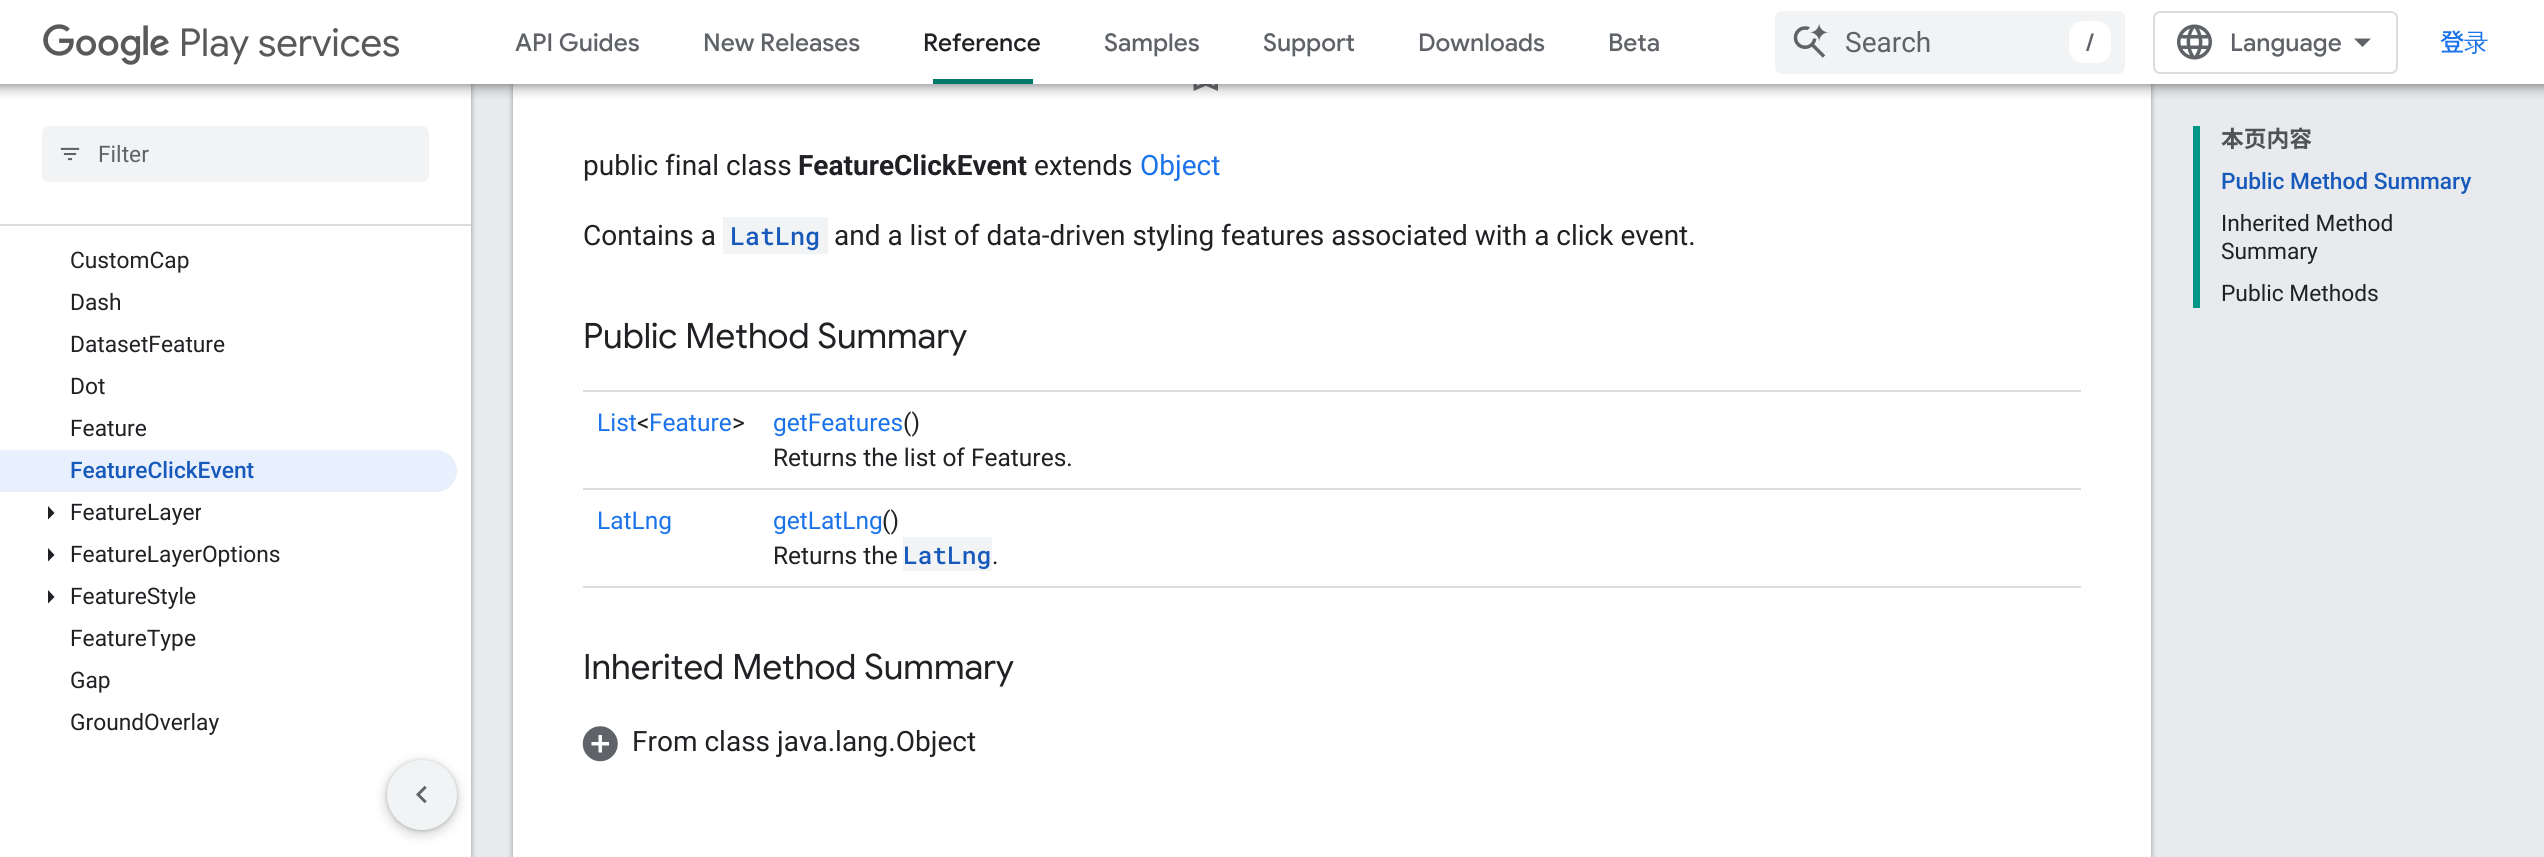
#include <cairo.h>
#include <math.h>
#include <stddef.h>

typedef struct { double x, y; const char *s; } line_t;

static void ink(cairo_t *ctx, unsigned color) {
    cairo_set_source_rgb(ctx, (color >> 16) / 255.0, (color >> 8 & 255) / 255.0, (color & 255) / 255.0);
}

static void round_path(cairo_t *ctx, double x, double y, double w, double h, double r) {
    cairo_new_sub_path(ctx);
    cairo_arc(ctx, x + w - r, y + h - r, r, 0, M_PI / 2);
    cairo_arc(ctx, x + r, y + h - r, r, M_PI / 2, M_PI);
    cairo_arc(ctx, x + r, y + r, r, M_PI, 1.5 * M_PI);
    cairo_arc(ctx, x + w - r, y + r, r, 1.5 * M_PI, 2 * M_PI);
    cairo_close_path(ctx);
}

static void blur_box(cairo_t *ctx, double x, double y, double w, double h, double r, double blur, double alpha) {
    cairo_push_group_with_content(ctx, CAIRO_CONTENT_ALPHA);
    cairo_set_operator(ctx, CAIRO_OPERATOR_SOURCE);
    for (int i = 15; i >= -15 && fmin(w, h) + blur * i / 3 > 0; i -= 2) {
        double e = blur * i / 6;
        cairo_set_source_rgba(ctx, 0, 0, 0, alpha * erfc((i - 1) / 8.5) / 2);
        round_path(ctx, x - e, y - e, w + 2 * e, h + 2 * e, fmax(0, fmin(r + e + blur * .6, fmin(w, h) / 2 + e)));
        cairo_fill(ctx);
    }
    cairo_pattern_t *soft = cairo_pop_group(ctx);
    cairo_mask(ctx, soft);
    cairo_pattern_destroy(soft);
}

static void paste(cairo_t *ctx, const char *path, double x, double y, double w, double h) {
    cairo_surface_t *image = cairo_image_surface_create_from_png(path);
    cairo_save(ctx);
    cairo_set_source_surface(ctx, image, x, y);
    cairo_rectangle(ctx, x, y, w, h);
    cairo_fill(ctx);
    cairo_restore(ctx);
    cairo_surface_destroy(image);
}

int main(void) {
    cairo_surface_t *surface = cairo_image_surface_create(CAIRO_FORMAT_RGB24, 2544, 857);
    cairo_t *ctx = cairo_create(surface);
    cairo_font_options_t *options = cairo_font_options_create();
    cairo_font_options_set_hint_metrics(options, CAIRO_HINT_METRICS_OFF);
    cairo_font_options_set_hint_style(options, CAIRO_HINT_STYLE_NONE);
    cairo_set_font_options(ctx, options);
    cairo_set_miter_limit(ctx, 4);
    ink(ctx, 0xE8EAED);
    cairo_paint(ctx);
    ink(ctx, 0x3C4043);
    blur_box(ctx, -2, 0, 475, 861, 0, 2.5, 0.15);
    blur_box(ctx, 0, 2, 471, 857, 0, 2, 0.3);
    ink(ctx, 0xFFFFFF);
    cairo_rectangle(ctx, 0, 226, 471, 631);
    cairo_fill(ctx);
    cairo_rectangle(ctx, 0, 84, 471, 140);
    cairo_fill(ctx);
    ink(ctx, 0x3C4043);
    blur_box(ctx, 511, -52, 1642, 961, 44, 2.5, 0.15);
    blur_box(ctx, 513, -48, 1638, 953, 42, 2, 0.3);
    ink(ctx, 0xFFFFFF);
    cairo_rectangle(ctx, 513, 84, 1638, 773);
    cairo_fill(ctx);
    paste(ctx, "media/5.png", 1193, 84, 25, 7);
    ink(ctx, 0x3C4043);
    blur_box(ctx, -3, 0, 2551, 91, 0, 5, 0.15);
    blur_box(ctx, 0, 2, 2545, 84, 0, 2, 0.3);
    blur_box(ctx, -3, 84, 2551, 7, 0, 5, 0.15);
    ink(ctx, 0xFFFFFF);
    cairo_rectangle(ctx, 0, 0, 2544, 84);
    cairo_fill(ctx);
    paste(ctx, "media/1.png", 43, 24, 126, 41);
    cairo_select_font_face(ctx, "Google Sans", CAIRO_FONT_SLANT_NORMAL, CAIRO_FONT_WEIGHT_NORMAL);
    cairo_set_font_size(ctx, 38.5);
    ink(ctx, 0x595959);
    cairo_move_to(ctx, 179, 56);
    cairo_show_text(ctx, "Play services");
    cairo_select_font_face(ctx, "Google Sans Medium", CAIRO_FONT_SLANT_NORMAL, CAIRO_FONT_WEIGHT_NORMAL);
    cairo_set_font_size(ctx, 24.5);
    ink(ctx, 0x5F6368);
    cairo_move_to(ctx, 515, 51);
    cairo_show_text(ctx, "API Guides");
    cairo_move_to(ctx, 703, 51);
    cairo_show_text(ctx, "New Releases");
    ink(ctx, 0x202124);
    cairo_move_to(ctx, 923, 51);
    cairo_show_text(ctx, "Reference");
    ink(ctx, 0x00796B);
    cairo_rectangle(ctx, 933, 79, 100, 5);
    cairo_fill(ctx);
    ink(ctx, 0x5F6368);
    {
        static const line_t items[] = {
            {1104, 51, "Samples"},
            {1263, 51, "Support"},
            {1418, 51, "Downloads"},
            {1608, 51, "Beta"},
        };
        for (size_t i = 0; i < sizeof items / sizeof *items; i++) {
            cairo_move_to(ctx, items[i].x, items[i].y);
            cairo_show_text(ctx, items[i].s);
        }
    }
    ink(ctx, 0xF1F3F4);
    round_path(ctx, 1775, 11, 350, 63, 7);
    cairo_fill(ctx);
    paste(ctx, "media/2.png", 1793, 23, 36, 35);
    cairo_select_font_face(ctx, "Roboto", CAIRO_FONT_SLANT_NORMAL, CAIRO_FONT_WEIGHT_NORMAL);
    cairo_set_font_size(ctx, 28);
    ink(ctx, 0x5F6368);
    cairo_move_to(ctx, 1845, 52);
    cairo_show_text(ctx, "Search");
    ink(ctx, 0xFFFFFF);
    round_path(ctx, 2069, 21, 42, 42, 14);
    cairo_fill(ctx);
    cairo_select_font_face(ctx, "Google Sans Medium", CAIRO_FONT_SLANT_NORMAL, CAIRO_FONT_WEIGHT_NORMAL);
    cairo_set_font_size(ctx, 24.5);
    ink(ctx, 0x5F6368);
    cairo_move_to(ctx, 2086, 51);
    cairo_show_text(ctx, "/");
    round_path(ctx, 2154, 12, 243, 61, 6);
    ink(ctx, 0xDADCE0);
    cairo_stroke(ctx);
    paste(ctx, "media/3.png", 2177, 24, 35, 36);
    ink(ctx, 0x5F6368);
    cairo_move_to(ctx, 2230, 51);
    cairo_show_text(ctx, "Language");
    cairo_new_path(ctx);
    cairo_move_to(ctx, 2362.5, 47);
    cairo_line_to(ctx, 2354, 38.5);
    cairo_line_to(ctx, 2371, 38.5);
    cairo_close_path(ctx);
    cairo_fill(ctx);
    cairo_select_font_face(ctx, "Noto Sans JP Medium", CAIRO_FONT_SLANT_NORMAL, CAIRO_FONT_WEIGHT_NORMAL);
    ink(ctx, 0x1A73E8);
    cairo_move_to(ctx, 2440, 51);
    cairo_show_text(ctx, "登");
    cairo_select_font_face(ctx, "WenQuanYi Zen Hei Medium", CAIRO_FONT_SLANT_NORMAL, CAIRO_FONT_WEIGHT_NORMAL);
    cairo_move_to(ctx, 2464, 51);
    cairo_show_text(ctx, "录");
    ink(ctx, 0xDADCE0);
    cairo_rectangle(ctx, 0, 224, 471, 2);
    cairo_fill(ctx);
    ink(ctx, 0xF1F3F4);
    round_path(ctx, 42, 126, 387, 56, 7);
    cairo_fill(ctx);
    paste(ctx, "media/4.png", 60, 147, 20, 14);
    cairo_select_font_face(ctx, "Roboto", CAIRO_FONT_SLANT_NORMAL, CAIRO_FONT_WEIGHT_NORMAL);
    cairo_set_font_size(ctx, 22.75);
    ink(ctx, 0x5F6368);
    cairo_move_to(ctx, 98, 162);
    cairo_show_text(ctx, "Filter");
    ink(ctx, 0x202124);
    {
        static const line_t items[] = {
            {70, 268, "CustomCap"},
            {70, 310, "Dash"},
            {70, 352, "DatasetFeature"},
            {70, 394, "Dot"},
            {70, 436, "Feature"},
        };
        for (size_t i = 0; i < sizeof items / sizeof *items; i++) {
            cairo_move_to(ctx, items[i].x, items[i].y);
            cairo_show_text(ctx, items[i].s);
        }
    }
    ink(ctx, 0xE8F0FE);
    cairo_new_path(ctx);
    cairo_move_to(ctx, 0, 450);
    cairo_line_to(ctx, 436, 450);
    cairo_curve_to(ctx, 447.5, 450, 457, 459.5, 457, 471);
    cairo_curve_to(ctx, 457, 482.5, 447.5, 492, 436, 492);
    cairo_line_to(ctx, 0, 492);
    cairo_close_path(ctx);
    cairo_fill(ctx);
    cairo_select_font_face(ctx, "Roboto Medium", CAIRO_FONT_SLANT_NORMAL, CAIRO_FONT_WEIGHT_NORMAL);
    ink(ctx, 0x185ABC);
    cairo_move_to(ctx, 70, 478);
    cairo_show_text(ctx, "FeatureClickEvent");
    ink(ctx, 0x202124);
    cairo_new_path(ctx);
    cairo_move_to(ctx, 48, 519.5);
    cairo_line_to(ctx, 48, 506);
    cairo_line_to(ctx, 54.5, 513);
    cairo_close_path(ctx);
    cairo_fill(ctx);
    cairo_select_font_face(ctx, "Roboto", CAIRO_FONT_SLANT_NORMAL, CAIRO_FONT_WEIGHT_NORMAL);
    cairo_move_to(ctx, 70, 520);
    cairo_show_text(ctx, "Feature");
    cairo_save(ctx);
    cairo_rectangle(ctx, 70, 84, 131, 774);
    cairo_clip(ctx);
    cairo_move_to(ctx, 147, 520);
    cairo_show_text(ctx, "Layer");
    cairo_restore(ctx);
    cairo_new_path(ctx);
    cairo_move_to(ctx, 48, 561.5);
    cairo_line_to(ctx, 48, 548);
    cairo_line_to(ctx, 54.5, 555);
    cairo_close_path(ctx);
    cairo_fill(ctx);
    cairo_move_to(ctx, 70, 562);
    cairo_show_text(ctx, "FeatureLayerOptions");
    cairo_new_path(ctx);
    cairo_move_to(ctx, 48, 603.5);
    cairo_line_to(ctx, 48, 590);
    cairo_line_to(ctx, 54.5, 597);
    cairo_close_path(ctx);
    cairo_fill(ctx);
    {
        static const line_t items[] = {
            {70, 604, "FeatureStyle"},
            {70, 646, "FeatureType"},
            {70, 688, "Gap"},
            {70, 730, "GroundOverlay"},
        };
        for (size_t i = 0; i < sizeof items / sizeof *items; i++) {
            cairo_move_to(ctx, items[i].x, items[i].y);
            cairo_show_text(ctx, items[i].s);
        }
    }
    cairo_set_font_size(ctx, 28);
    cairo_move_to(ctx, 583, 175);
    cairo_show_text(ctx, "public final class");
    cairo_select_font_face(ctx, "Roboto", CAIRO_FONT_SLANT_NORMAL, CAIRO_FONT_WEIGHT_BOLD);
    cairo_move_to(ctx, 798, 175);
    cairo_show_text(ctx, "FeatureClickEvent");
    cairo_select_font_face(ctx, "Roboto", CAIRO_FONT_SLANT_NORMAL, CAIRO_FONT_WEIGHT_NORMAL);
    cairo_move_to(ctx, 1034, 175);
    cairo_show_text(ctx, "extends");
    ink(ctx, 0x1A73E8);
    cairo_move_to(ctx, 1140, 175);
    cairo_show_text(ctx, "Object");
    ink(ctx, 0x202124);
    cairo_move_to(ctx, 583, 245);
    cairo_show_text(ctx, "Contains a");
    ink(ctx, 0xF1F3F4);
    cairo_rectangle(ctx, 723, 217, 105, 37);
    cairo_fill(ctx);
    cairo_select_font_face(ctx, "Roboto Mono Medium", CAIRO_FONT_SLANT_NORMAL, CAIRO_FONT_WEIGHT_NORMAL);
    cairo_set_font_size(ctx, 25);
    ink(ctx, 0x185ABC);
    cairo_move_to(ctx, 730, 245);
    cairo_show_text(ctx, "LatLng");
    cairo_select_font_face(ctx, "Roboto", CAIRO_FONT_SLANT_NORMAL, CAIRO_FONT_WEIGHT_NORMAL);
    cairo_set_font_size(ctx, 28);
    ink(ctx, 0x202124);
    cairo_move_to(ctx, 834, 245);
    cairo_show_text(ctx, "and a list of data-driven styling features associated with a click event.");
    cairo_select_font_face(ctx, "Google Sans", CAIRO_FONT_SLANT_NORMAL, CAIRO_FONT_WEIGHT_NORMAL);
    cairo_set_font_size(ctx, 35);
    cairo_move_to(ctx, 583, 348);
    cairo_show_text(ctx, "Public Method Summary");
    ink(ctx, 0xDADCE0);
    cairo_rectangle(ctx, 583, 390, 1498, 2);
    cairo_fill(ctx);
    cairo_rectangle(ctx, 583, 488, 1498, 2);
    cairo_fill(ctx);
    cairo_select_font_face(ctx, "Roboto", CAIRO_FONT_SLANT_NORMAL, CAIRO_FONT_WEIGHT_NORMAL);
    cairo_set_font_size(ctx, 24.5);
    ink(ctx, 0x1A73E8);
    cairo_move_to(ctx, 597, 431);
    cairo_show_text(ctx, "List");
    ink(ctx, 0x202124);
    cairo_move_to(ctx, 637, 431);
    cairo_show_text(ctx, "<");
    ink(ctx, 0x1A73E8);
    cairo_move_to(ctx, 649, 431);
    cairo_show_text(ctx, "Feature");
    ink(ctx, 0x202124);
    cairo_move_to(ctx, 732, 431);
    cairo_show_text(ctx, ">");
    ink(ctx, 0x1A73E8);
    cairo_move_to(ctx, 773, 431);
    cairo_show_text(ctx, "getFeatures");
    ink(ctx, 0x202124);
    cairo_move_to(ctx, 903, 431);
    cairo_show_text(ctx, "()");
    cairo_move_to(ctx, 773, 466);
    cairo_show_text(ctx, "Returns the list of Features.");
    ink(ctx, 0xDADCE0);
    cairo_rectangle(ctx, 583, 586, 1498, 2);
    cairo_fill(ctx);
    ink(ctx, 0x1A73E8);
    cairo_move_to(ctx, 597, 529);
    cairo_show_text(ctx, "LatLng");
    cairo_move_to(ctx, 773, 529);
    cairo_show_text(ctx, "getLatLng");
    ink(ctx, 0x202124);
    cairo_move_to(ctx, 882, 529);
    cairo_show_text(ctx, "()");
    cairo_move_to(ctx, 773, 564);
    cairo_show_text(ctx, "Returns the");
    ink(ctx, 0xF1F3F4);
    cairo_rectangle(ctx, 903, 537, 89, 34);
    cairo_fill(ctx);
    cairo_select_font_face(ctx, "Roboto Mono Medium", CAIRO_FONT_SLANT_NORMAL, CAIRO_FONT_WEIGHT_NORMAL);
    ink(ctx, 0x185ABC);
    cairo_move_to(ctx, 903, 564);
    cairo_show_text(ctx, "LatLng");
    cairo_select_font_face(ctx, "Roboto", CAIRO_FONT_SLANT_NORMAL, CAIRO_FONT_WEIGHT_NORMAL);
    ink(ctx, 0x202124);
    cairo_move_to(ctx, 992, 564);
    cairo_show_text(ctx, ".");
    cairo_select_font_face(ctx, "Google Sans", CAIRO_FONT_SLANT_NORMAL, CAIRO_FONT_WEIGHT_NORMAL);
    cairo_set_font_size(ctx, 35);
    cairo_move_to(ctx, 583, 679);
    cairo_show_text(ctx, "Inherited Method Summary");
    paste(ctx, "media/6.png", 582, 726, 36, 36);
    cairo_select_font_face(ctx, "Roboto", CAIRO_FONT_SLANT_NORMAL, CAIRO_FONT_WEIGHT_NORMAL);
    cairo_set_font_size(ctx, 28);
    cairo_move_to(ctx, 632, 751);
    cairo_show_text(ctx, "From class java.lang.Object");
    ink(ctx, 0x009688);
    cairo_rectangle(ctx, 2193, 126, 7, 182);
    cairo_fill(ctx);
    cairo_select_font_face(ctx, "Noto Sans JP", CAIRO_FONT_SLANT_NORMAL, CAIRO_FONT_WEIGHT_BOLD);
    cairo_set_font_size(ctx, 22.75);
    ink(ctx, 0x515253);
    cairo_move_to(ctx, 2221, 147);
    cairo_show_text(ctx, "本页内容");
    cairo_select_font_face(ctx, "Roboto Medium", CAIRO_FONT_SLANT_NORMAL, CAIRO_FONT_WEIGHT_NORMAL);
    ink(ctx, 0x185ABC);
    cairo_move_to(ctx, 2221, 189);
    cairo_show_text(ctx, "Public Method Summary");
    cairo_select_font_face(ctx, "Roboto", CAIRO_FONT_SLANT_NORMAL, CAIRO_FONT_WEIGHT_NORMAL);
    ink(ctx, 0x202124);
    {
        static const line_t items[] = {
            {2221, 231, "Inherited Method"},
            {2221, 259, "Summary"},
            {2221, 301, "Public Methods"},
        };
        for (size_t i = 0; i < sizeof items / sizeof *items; i++) {
            cairo_move_to(ctx, items[i].x, items[i].y);
            cairo_show_text(ctx, items[i].s);
        }
    }
    ink(ctx, 0x3C4043);
    blur_box(ctx, 383, 760, 77, 77, 38.5, 5, 0.15);
    blur_box(ctx, 387, 761, 70, 70, 35, 2, 0.3);
    ink(ctx, 0xF1F3F4);
    cairo_arc(ctx, 422, 795, 35, 0, 2 * M_PI);
    cairo_fill(ctx);
    paste(ctx, "media/7.png", 416, 785, 11, 19);
    cairo_surface_write_to_png(surface, "image.png");
    cairo_font_options_destroy(options);
    cairo_destroy(ctx);
    cairo_surface_destroy(surface);
    return 0;
}
